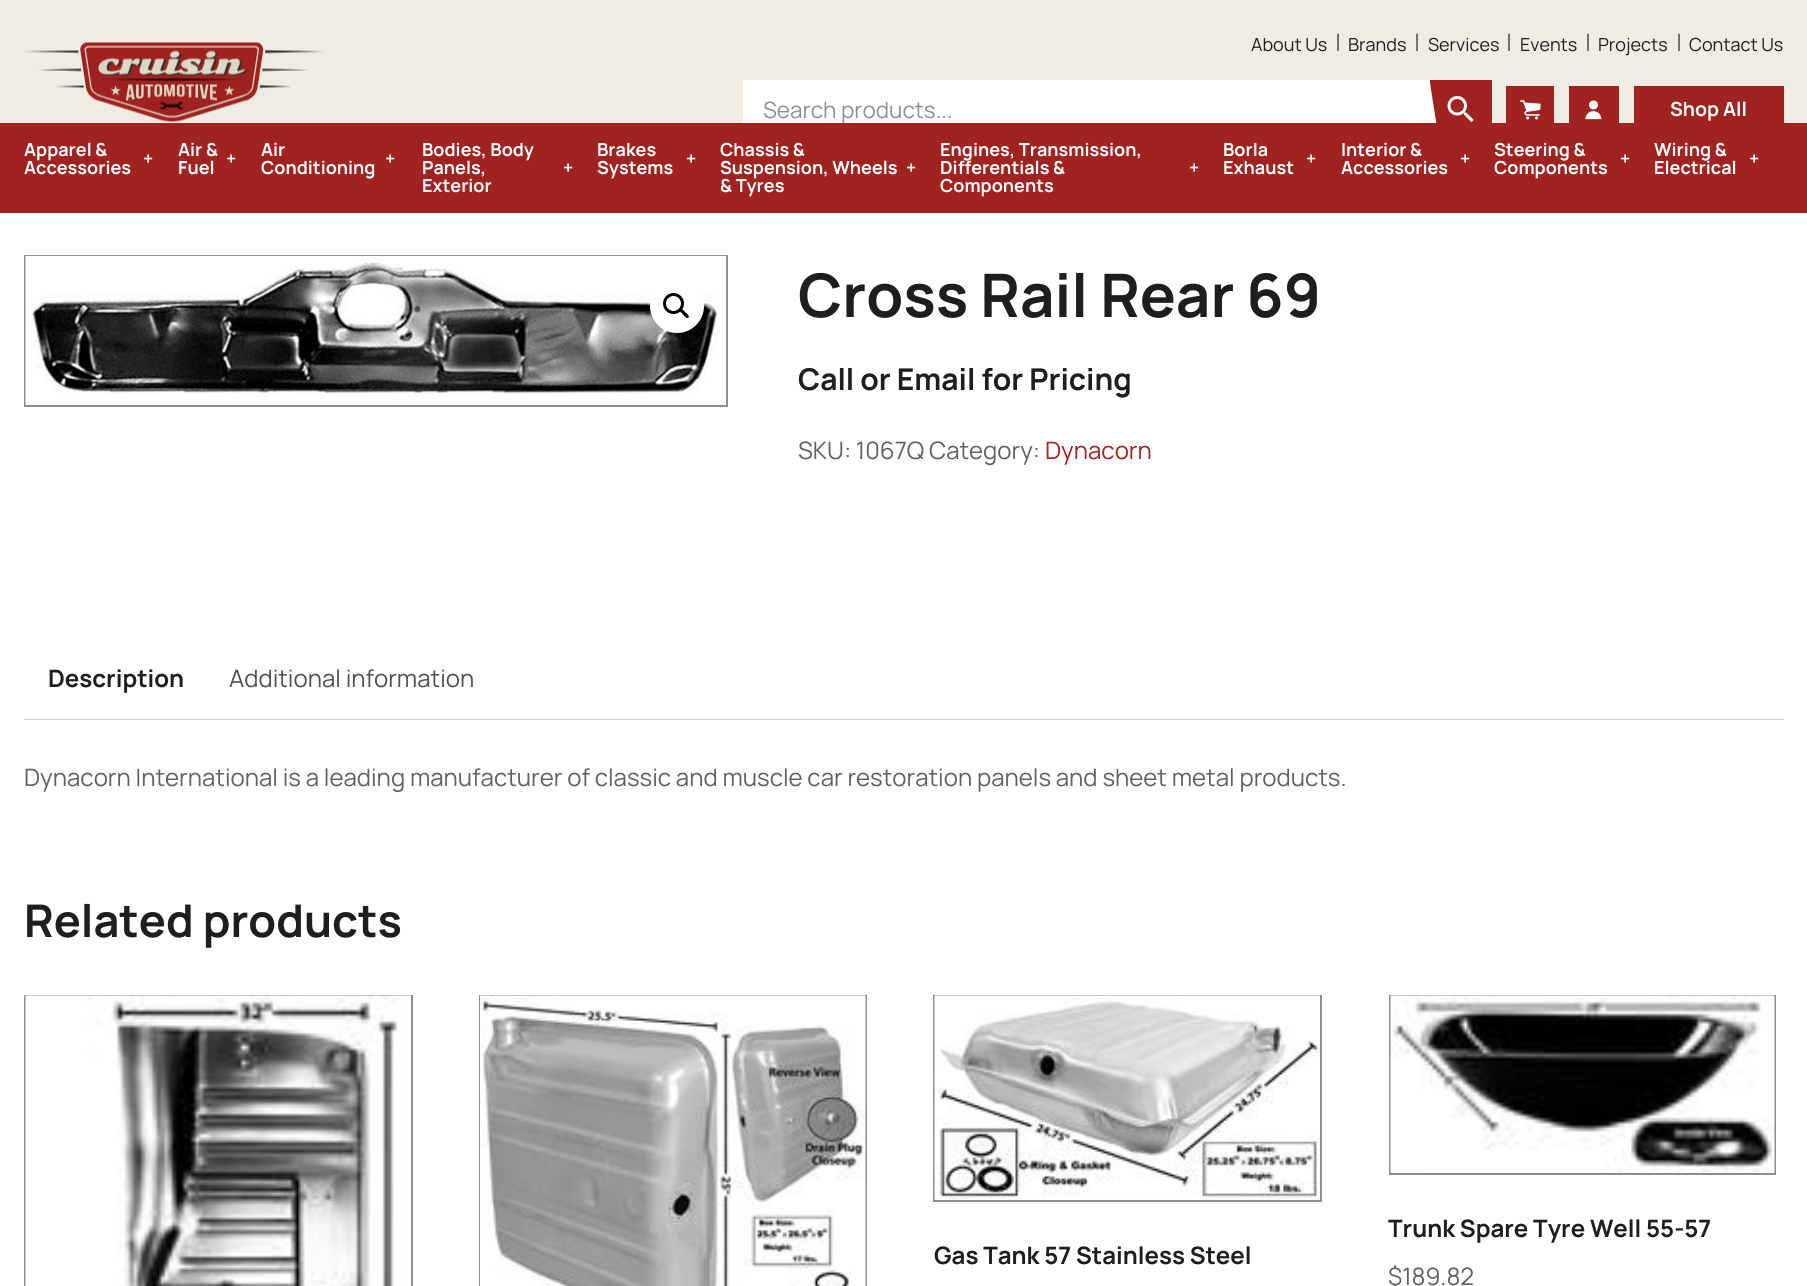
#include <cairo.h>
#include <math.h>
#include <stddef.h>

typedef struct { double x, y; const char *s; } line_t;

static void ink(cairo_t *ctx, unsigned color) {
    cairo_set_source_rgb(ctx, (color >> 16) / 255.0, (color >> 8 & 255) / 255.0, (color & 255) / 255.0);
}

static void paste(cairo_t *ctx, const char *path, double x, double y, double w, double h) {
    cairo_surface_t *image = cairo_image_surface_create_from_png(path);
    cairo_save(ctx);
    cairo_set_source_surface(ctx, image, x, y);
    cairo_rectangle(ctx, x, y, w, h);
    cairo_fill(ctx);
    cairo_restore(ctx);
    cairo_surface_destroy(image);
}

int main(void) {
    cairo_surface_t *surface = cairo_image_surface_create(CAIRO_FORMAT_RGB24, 1807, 1286);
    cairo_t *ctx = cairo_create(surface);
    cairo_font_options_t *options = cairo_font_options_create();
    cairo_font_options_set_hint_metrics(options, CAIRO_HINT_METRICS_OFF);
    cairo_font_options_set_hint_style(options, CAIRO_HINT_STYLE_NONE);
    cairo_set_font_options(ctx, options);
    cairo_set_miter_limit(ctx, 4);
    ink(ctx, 0xFFFFFF);
    cairo_paint(ctx);
    ink(ctx, 0xEFEDE3);
    cairo_rectangle(ctx, 0, 0, 1807, 123);
    cairo_fill(ctx);
    paste(ctx, "media/1.png", 25, 42, 298, 80);
    cairo_select_font_face(ctx, "Manrope", CAIRO_FONT_SLANT_NORMAL, CAIRO_FONT_WEIGHT_NORMAL);
    cairo_set_font_size(ctx, 18);
    ink(ctx, 0x1F1D1E);
    cairo_move_to(ctx, 1251, 51);
    cairo_show_text(ctx, "About Us");
    cairo_set_font_size(ctx, 24);
    ink(ctx, 0x626162);
    cairo_move_to(ctx, 1335, 51);
    cairo_show_text(ctx, "|");
    cairo_set_font_size(ctx, 18);
    ink(ctx, 0x1F1D1E);
    cairo_move_to(ctx, 1348, 51);
    cairo_show_text(ctx, "Brands");
    cairo_set_font_size(ctx, 24);
    ink(ctx, 0x626162);
    cairo_move_to(ctx, 1414, 51);
    cairo_show_text(ctx, "|");
    cairo_set_font_size(ctx, 18);
    ink(ctx, 0x1F1D1E);
    cairo_move_to(ctx, 1428, 51);
    cairo_show_text(ctx, "Services");
    cairo_set_font_size(ctx, 24);
    ink(ctx, 0x626162);
    cairo_move_to(ctx, 1506, 51);
    cairo_show_text(ctx, "|");
    cairo_set_font_size(ctx, 18);
    ink(ctx, 0x1F1D1E);
    cairo_move_to(ctx, 1520, 51);
    cairo_show_text(ctx, "Events");
    cairo_set_font_size(ctx, 24);
    ink(ctx, 0x626162);
    cairo_move_to(ctx, 1585, 51);
    cairo_show_text(ctx, "|");
    cairo_set_font_size(ctx, 18);
    ink(ctx, 0x1F1D1E);
    cairo_move_to(ctx, 1598, 51);
    cairo_show_text(ctx, "Projects");
    cairo_set_font_size(ctx, 24);
    ink(ctx, 0x626162);
    cairo_move_to(ctx, 1676, 51);
    cairo_show_text(ctx, "|");
    cairo_set_font_size(ctx, 18);
    ink(ctx, 0x1F1D1E);
    cairo_move_to(ctx, 1689, 51);
    cairo_show_text(ctx, "Contact Us");
    ink(ctx, 0xFFFFFF);
    cairo_rectangle(ctx, 743, 80, 750, 43);
    cairo_fill(ctx);
    cairo_set_font_size(ctx, 22.5);
    ink(ctx, 0x909090);
    cairo_move_to(ctx, 763, 118);
    cairo_show_text(ctx, "Search products...");
    ink(ctx, 0xA02321);
    cairo_rectangle(ctx, 0, 123, 1807, 90);
    cairo_fill(ctx);
    cairo_new_path(ctx);
    cairo_move_to(ctx, 1430, 80);
    cairo_line_to(ctx, 1492, 80);
    cairo_line_to(ctx, 1492, 140);
    cairo_line_to(ctx, 1439, 140);
    cairo_line_to(ctx, 1430, 83);
    cairo_close_path(ctx);
    cairo_fill(ctx);
    paste(ctx, "media/2.png", 1447, 96, 27, 27);
    cairo_rectangle(ctx, 1506, 86, 48, 37);
    cairo_fill(ctx);
    paste(ctx, "media/3.png", 1520, 100, 21, 20);
    cairo_rectangle(ctx, 1569, 86, 50, 37);
    cairo_fill(ctx);
    paste(ctx, "media/4.png", 1585, 100, 17, 20);
    cairo_rectangle(ctx, 1634, 86, 150, 37);
    cairo_fill(ctx);
    cairo_select_font_face(ctx, "Manrope", CAIRO_FONT_SLANT_NORMAL, CAIRO_FONT_WEIGHT_BOLD);
    cairo_set_font_size(ctx, 19.5);
    ink(ctx, 0xFFFFFF);
    cairo_move_to(ctx, 1670, 116);
    cairo_show_text(ctx, "Shop All");
    cairo_set_font_size(ctx, 18);
    {
        static const line_t items[] = {
            {24, 156, "Apparel &"},
            {143, 165, "+"},
            {24, 174, "Accessories"},
            {178, 156, "Air &"},
            {226, 165, "+"},
            {178, 174, "Fuel"},
            {261, 156, "Air"},
            {385, 165, "+"},
            {261, 174, "Conditioning"},
            {422, 156, "Bodies, Body"},
            {422, 174, "Panels,"},
            {563, 174, "+"},
            {422, 192, "Exterior"},
            {597, 156, "Brakes"},
            {686, 165, "+"},
            {597, 174, "Systems"},
            {720, 156, "Chassis &"},
            {720, 174, "Suspension, Wheels"},
            {906, 174, "+"},
            {720, 192, "& Tyres"},
            {940, 156, "Engines, Transmission,"},
            {940, 174, "Differentials &"},
            {1189, 174, "+"},
            {940, 192, "Components"},
            {1223, 156, "Borla"},
            {1306, 165, "+"},
            {1223, 174, "Exhaust"},
            {1341, 156, "Interior &"},
            {1460, 165, "+"},
            {1341, 174, "Accessories"},
            {1494, 156, "Steering &"},
            {1620, 165, "+"},
            {1494, 174, "Components"},
            {1654, 156, "Wiring &"},
            {1749, 165, "+"},
            {1654, 174, "Electrical"},
        };
        for (size_t i = 0; i < sizeof items / sizeof *items; i++) {
            cairo_move_to(ctx, items[i].x, items[i].y);
            cairo_show_text(ctx, items[i].s);
        }
    }
    cairo_rectangle(ctx, 25, 256, 702, 150);
    ink(ctx, 0x8F8E8E);
    cairo_stroke(ctx);
    paste(ctx, "media/5.png", 25, 256, 701, 149);
    ink(ctx, 0xFFFFFF);
    cairo_arc(ctx, 677, 306, 27, 0, 2 * M_PI);
    cairo_fill(ctx);
    cairo_arc(ctx, 673.5, 303.5, 9, 0, 2 * M_PI);
    ink(ctx, 0x000000);
    cairo_set_line_width(ctx, 3);
    cairo_stroke(ctx);
    cairo_new_path(ctx);
    cairo_move_to(ctx, 680, 309.5);
    cairo_curve_to(ctx, 681.5, 307.5, 684.5, 311.5, 685.5, 312.5);
    cairo_curve_to(ctx, 686.5, 313.5, 690, 316, 688.5, 317.5);
    cairo_curve_to(ctx, 687, 319.5, 684, 315.5, 683, 314.5);
    cairo_curve_to(ctx, 682.5, 313.5, 678.5, 311, 680, 309.5);
    cairo_close_path(ctx);
    cairo_fill(ctx);
    cairo_set_font_size(ctx, 60);
    ink(ctx, 0x1F1D1E);
    cairo_move_to(ctx, 798, 317);
    cairo_show_text(ctx, "Cross Rail Rear 69");
    cairo_set_font_size(ctx, 30);
    cairo_move_to(ctx, 798, 390);
    cairo_show_text(ctx, "Call or Email for Pricing");
    cairo_select_font_face(ctx, "Manrope", CAIRO_FONT_SLANT_NORMAL, CAIRO_FONT_WEIGHT_NORMAL);
    cairo_set_font_size(ctx, 24);
    ink(ctx, 0x626162);
    cairo_move_to(ctx, 798, 459);
    cairo_show_text(ctx, "SKU: 1067Q Category:");
    ink(ctx, 0xA02321);
    cairo_move_to(ctx, 1045, 459);
    cairo_show_text(ctx, "Dynacorn");
    cairo_select_font_face(ctx, "Manrope", CAIRO_FONT_SLANT_NORMAL, CAIRO_FONT_WEIGHT_BOLD);
    ink(ctx, 0x1F1D1E);
    cairo_move_to(ctx, 48, 687);
    cairo_show_text(ctx, "Description");
    cairo_select_font_face(ctx, "Manrope", CAIRO_FONT_SLANT_NORMAL, CAIRO_FONT_WEIGHT_NORMAL);
    ink(ctx, 0x515151);
    cairo_move_to(ctx, 229, 687);
    cairo_show_text(ctx, "Additional information");
    ink(ctx, 0xCFC8D8);
    cairo_rectangle(ctx, 24, 719, 1760, 1);
    cairo_fill(ctx);
    ink(ctx, 0x626162);
    cairo_move_to(ctx, 24, 786);
    cairo_show_text(ctx, "Dynacorn International is a leading manufacturer of classic and muscle car restoration panels and sheet metal products.");
    cairo_select_font_face(ctx, "Manrope", CAIRO_FONT_SLANT_NORMAL, CAIRO_FONT_WEIGHT_BOLD);
    cairo_set_font_size(ctx, 45);
    ink(ctx, 0x1F1D1E);
    cairo_move_to(ctx, 24, 937);
    cairo_show_text(ctx, "Related products");
    cairo_rectangle(ctx, 25, 996, 387, 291);
    ink(ctx, 0x8F8E8E);
    cairo_set_line_width(ctx, 2);
    cairo_stroke(ctx);
    paste(ctx, "media/6.png", 25, 995, 386, 291);
    cairo_rectangle(ctx, 480, 996, 386, 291);
    cairo_stroke(ctx);
    paste(ctx, "media/7.png", 480, 995, 386, 291);
    cairo_rectangle(ctx, 934, 996, 387, 205);
    cairo_stroke(ctx);
    paste(ctx, "media/8.png", 934, 995, 386, 205);
    cairo_set_font_size(ctx, 24);
    ink(ctx, 0x1F1D1E);
    cairo_move_to(ctx, 934, 1264);
    cairo_show_text(ctx, "Gas Tank 57 Stainless Steel");
    cairo_rectangle(ctx, 1390, 996, 385, 178);
    ink(ctx, 0x8F8E8E);
    cairo_stroke(ctx);
    paste(ctx, "media/9.png", 1390, 995, 385, 178);
    ink(ctx, 0x1F1D1E);
    cairo_move_to(ctx, 1388, 1237);
    cairo_show_text(ctx, "Trunk Spare Tyre Well 55-57");
    cairo_select_font_face(ctx, "Manrope", CAIRO_FONT_SLANT_NORMAL, CAIRO_FONT_WEIGHT_NORMAL);
    ink(ctx, 0x626162);
    cairo_move_to(ctx, 1388, 1285);
    cairo_show_text(ctx, "$189.82");
    cairo_surface_write_to_png(surface, "image.png");
    cairo_font_options_destroy(options);
    cairo_destroy(ctx);
    cairo_surface_destroy(surface);
    return 0;
}
